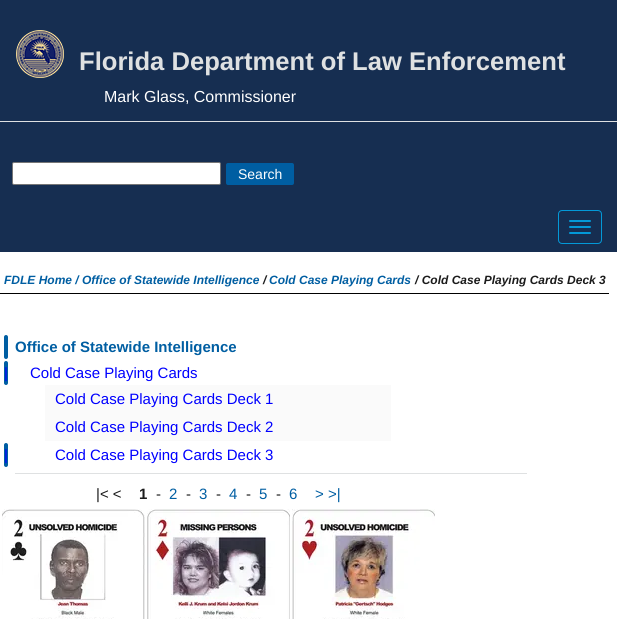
#include <cairo.h>
#include <math.h>
#include <stddef.h>


static void ink(cairo_t *ctx, unsigned color) {
    cairo_set_source_rgb(ctx, (color >> 16) / 255.0, (color >> 8 & 255) / 255.0, (color & 255) / 255.0);
}

static void round_path(cairo_t *ctx, double x, double y, double w, double h, double r) {
    cairo_new_sub_path(ctx);
    cairo_arc(ctx, x + w - r, y + h - r, r, 0, M_PI / 2);
    cairo_arc(ctx, x + r, y + h - r, r, M_PI / 2, M_PI);
    cairo_arc(ctx, x + r, y + r, r, M_PI, 1.5 * M_PI);
    cairo_arc(ctx, x + w - r, y + r, r, 1.5 * M_PI, 2 * M_PI);
    cairo_close_path(ctx);
}

static void paste(cairo_t *ctx, const char *path, double x, double y, double w, double h) {
    cairo_surface_t *image = cairo_image_surface_create_from_png(path);
    cairo_save(ctx);
    cairo_set_source_surface(ctx, image, x, y);
    cairo_rectangle(ctx, x, y, w, h);
    cairo_fill(ctx);
    cairo_restore(ctx);
    cairo_surface_destroy(image);
}

int main(void) {
    cairo_surface_t *surface = cairo_image_surface_create(CAIRO_FORMAT_RGB24, 617, 619);
    cairo_t *ctx = cairo_create(surface);
    cairo_font_options_t *options = cairo_font_options_create();
    cairo_font_options_set_hint_metrics(options, CAIRO_HINT_METRICS_OFF);
    cairo_font_options_set_hint_style(options, CAIRO_HINT_STYLE_NONE);
    cairo_set_font_options(ctx, options);
    cairo_set_miter_limit(ctx, 4);
    ink(ctx, 0xFFFFFF);
    cairo_paint(ctx);
    ink(ctx, 0x162E51);
    cairo_rectangle(ctx, 0, 0, 617, 121);
    cairo_fill(ctx);
    ink(ctx, 0xDFE1E2);
    cairo_rectangle(ctx, 0, 121, 617, 1);
    cairo_fill(ctx);
    paste(ctx, "media/1.png", 16, 30, 48, 48);
    cairo_select_font_face(ctx, "Liberation Sans", CAIRO_FONT_SLANT_NORMAL, CAIRO_FONT_WEIGHT_BOLD);
    cairo_set_font_size(ctx, 25.6);
    cairo_move_to(ctx, 79, 70);
    cairo_show_text(ctx, "Florida Department of Law Enforcement");
    cairo_select_font_face(ctx, "Liberation Sans", CAIRO_FONT_SLANT_NORMAL, CAIRO_FONT_WEIGHT_NORMAL);
    cairo_set_font_size(ctx, 16);
    ink(ctx, 0xFFFFFF);
    cairo_move_to(ctx, 104, 102);
    cairo_show_text(ctx, "Mark Glass, Commissioner");
    ink(ctx, 0x162E51);
    cairo_rectangle(ctx, 0, 122, 617, 130);
    cairo_fill(ctx);
    round_path(ctx, 558.5, 210.5, 43, 33, 3.5);
    ink(ctx, 0x0399D8);
    cairo_set_line_width(ctx, 1);
    cairo_stroke(ctx);
    round_path(ctx, 569, 220, 22, 2, 1);
    cairo_fill(ctx);
    round_path(ctx, 569, 226, 22, 2, 1);
    cairo_fill(ctx);
    round_path(ctx, 569, 232, 22, 2, 1);
    cairo_fill(ctx);
    ink(ctx, 0xFFFFFF);
    round_path(ctx, 12.5, 162.5, 208, 22, 1.5);
    cairo_fill_preserve(ctx);
    ink(ctx, 0x767676);
    cairo_stroke(ctx);
    ink(ctx, 0x005EA2);
    round_path(ctx, 226, 163, 68, 22, 2);
    cairo_fill(ctx);
    cairo_set_font_size(ctx, 14);
    ink(ctx, 0xFFFFFF);
    cairo_move_to(ctx, 238, 179);
    cairo_show_text(ctx, "Search");
    ink(ctx, 0x000000);
    cairo_rectangle(ctx, 0, 293, 609, 1);
    cairo_fill(ctx);
    cairo_select_font_face(ctx, "Liberation Sans", CAIRO_FONT_SLANT_ITALIC, CAIRO_FONT_WEIGHT_BOLD);
    cairo_set_font_size(ctx, 12);
    ink(ctx, 0x005EA2);
    cairo_move_to(ctx, 4, 284);
    cairo_show_text(ctx, "FDLE Home / Office of Statewide Intelligence");
    ink(ctx, 0x1B1B1B);
    cairo_move_to(ctx, 263, 284);
    cairo_show_text(ctx, "/");
    ink(ctx, 0x005EA2);
    cairo_move_to(ctx, 269, 284);
    cairo_show_text(ctx, "Cold Case Playing Cards");
    ink(ctx, 0x1B1B1B);
    cairo_move_to(ctx, 415, 284);
    cairo_show_text(ctx, "/ Cold Case Playing Cards Deck 3");
    ink(ctx, 0xDFE1E2);
    cairo_rectangle(ctx, 15, 473, 512, 1);
    cairo_fill(ctx);
    ink(ctx, 0x005EA2);
    round_path(ctx, 4, 335, 4, 24, 2);
    cairo_fill(ctx);
    cairo_select_font_face(ctx, "Liberation Sans", CAIRO_FONT_SLANT_NORMAL, CAIRO_FONT_WEIGHT_BOLD);
    cairo_set_font_size(ctx, 15);
    cairo_move_to(ctx, 15, 352);
    cairo_show_text(ctx, "Office of Statewide Intelligence");
    round_path(ctx, 4, 361, 4, 24, 2);
    cairo_fill(ctx);
    cairo_select_font_face(ctx, "Liberation Sans", CAIRO_FONT_SLANT_NORMAL, CAIRO_FONT_WEIGHT_NORMAL);
    ink(ctx, 0x0000FF);
    cairo_move_to(ctx, 4, 378);
    cairo_show_text(ctx, "|");
    cairo_move_to(ctx, 30, 378);
    cairo_show_text(ctx, "Cold Case Playing Cards");
    ink(ctx, 0xFAFAFA);
    cairo_rectangle(ctx, 45, 385, 346, 56);
    cairo_fill(ctx);
    ink(ctx, 0x0000FF);
    cairo_move_to(ctx, 55, 404);
    cairo_show_text(ctx, "Cold Case Playing Cards Deck 1");
    cairo_move_to(ctx, 55, 432);
    cairo_show_text(ctx, "Cold Case Playing Cards Deck 2");
    ink(ctx, 0x005EA2);
    round_path(ctx, 4, 443, 4, 24, 2);
    cairo_fill(ctx);
    ink(ctx, 0x0000FF);
    cairo_move_to(ctx, 4, 460);
    cairo_show_text(ctx, "|");
    cairo_move_to(ctx, 55, 460);
    cairo_show_text(ctx, "Cold Case Playing Cards Deck 3");
    ink(ctx, 0x1B1B1B);
    cairo_move_to(ctx, 96, 499);
    cairo_show_text(ctx, "|< <");
    cairo_select_font_face(ctx, "Liberation Sans", CAIRO_FONT_SLANT_NORMAL, CAIRO_FONT_WEIGHT_BOLD);
    cairo_move_to(ctx, 139, 499);
    cairo_show_text(ctx, "1");
    cairo_select_font_face(ctx, "Liberation Sans", CAIRO_FONT_SLANT_NORMAL, CAIRO_FONT_WEIGHT_NORMAL);
    cairo_move_to(ctx, 156, 499);
    cairo_show_text(ctx, "-");
    ink(ctx, 0x005EA2);
    cairo_move_to(ctx, 169, 499);
    cairo_show_text(ctx, "2");
    ink(ctx, 0x1B1B1B);
    cairo_move_to(ctx, 186, 499);
    cairo_show_text(ctx, "-");
    ink(ctx, 0x005EA2);
    cairo_move_to(ctx, 199, 499);
    cairo_show_text(ctx, "3");
    ink(ctx, 0x1B1B1B);
    cairo_move_to(ctx, 216, 499);
    cairo_show_text(ctx, "-");
    ink(ctx, 0x005EA2);
    cairo_move_to(ctx, 229, 499);
    cairo_show_text(ctx, "4");
    ink(ctx, 0x1B1B1B);
    cairo_move_to(ctx, 246, 499);
    cairo_show_text(ctx, "-");
    ink(ctx, 0x005EA2);
    cairo_move_to(ctx, 259, 499);
    cairo_show_text(ctx, "5");
    ink(ctx, 0x1B1B1B);
    cairo_move_to(ctx, 276, 499);
    cairo_show_text(ctx, "-");
    ink(ctx, 0x005EA2);
    cairo_move_to(ctx, 289, 499);
    cairo_show_text(ctx, "6");
    cairo_move_to(ctx, 315, 499);
    cairo_show_text(ctx, "> >|");
    paste(ctx, "media/2.png", 2, 509, 143, 110);
    paste(ctx, "media/3.png", 147, 509, 143, 110);
    paste(ctx, "media/4.png", 292, 509, 143, 110);
    cairo_surface_write_to_png(surface, "image.png");
    cairo_font_options_destroy(options);
    cairo_destroy(ctx);
    cairo_surface_destroy(surface);
    return 0;
}
